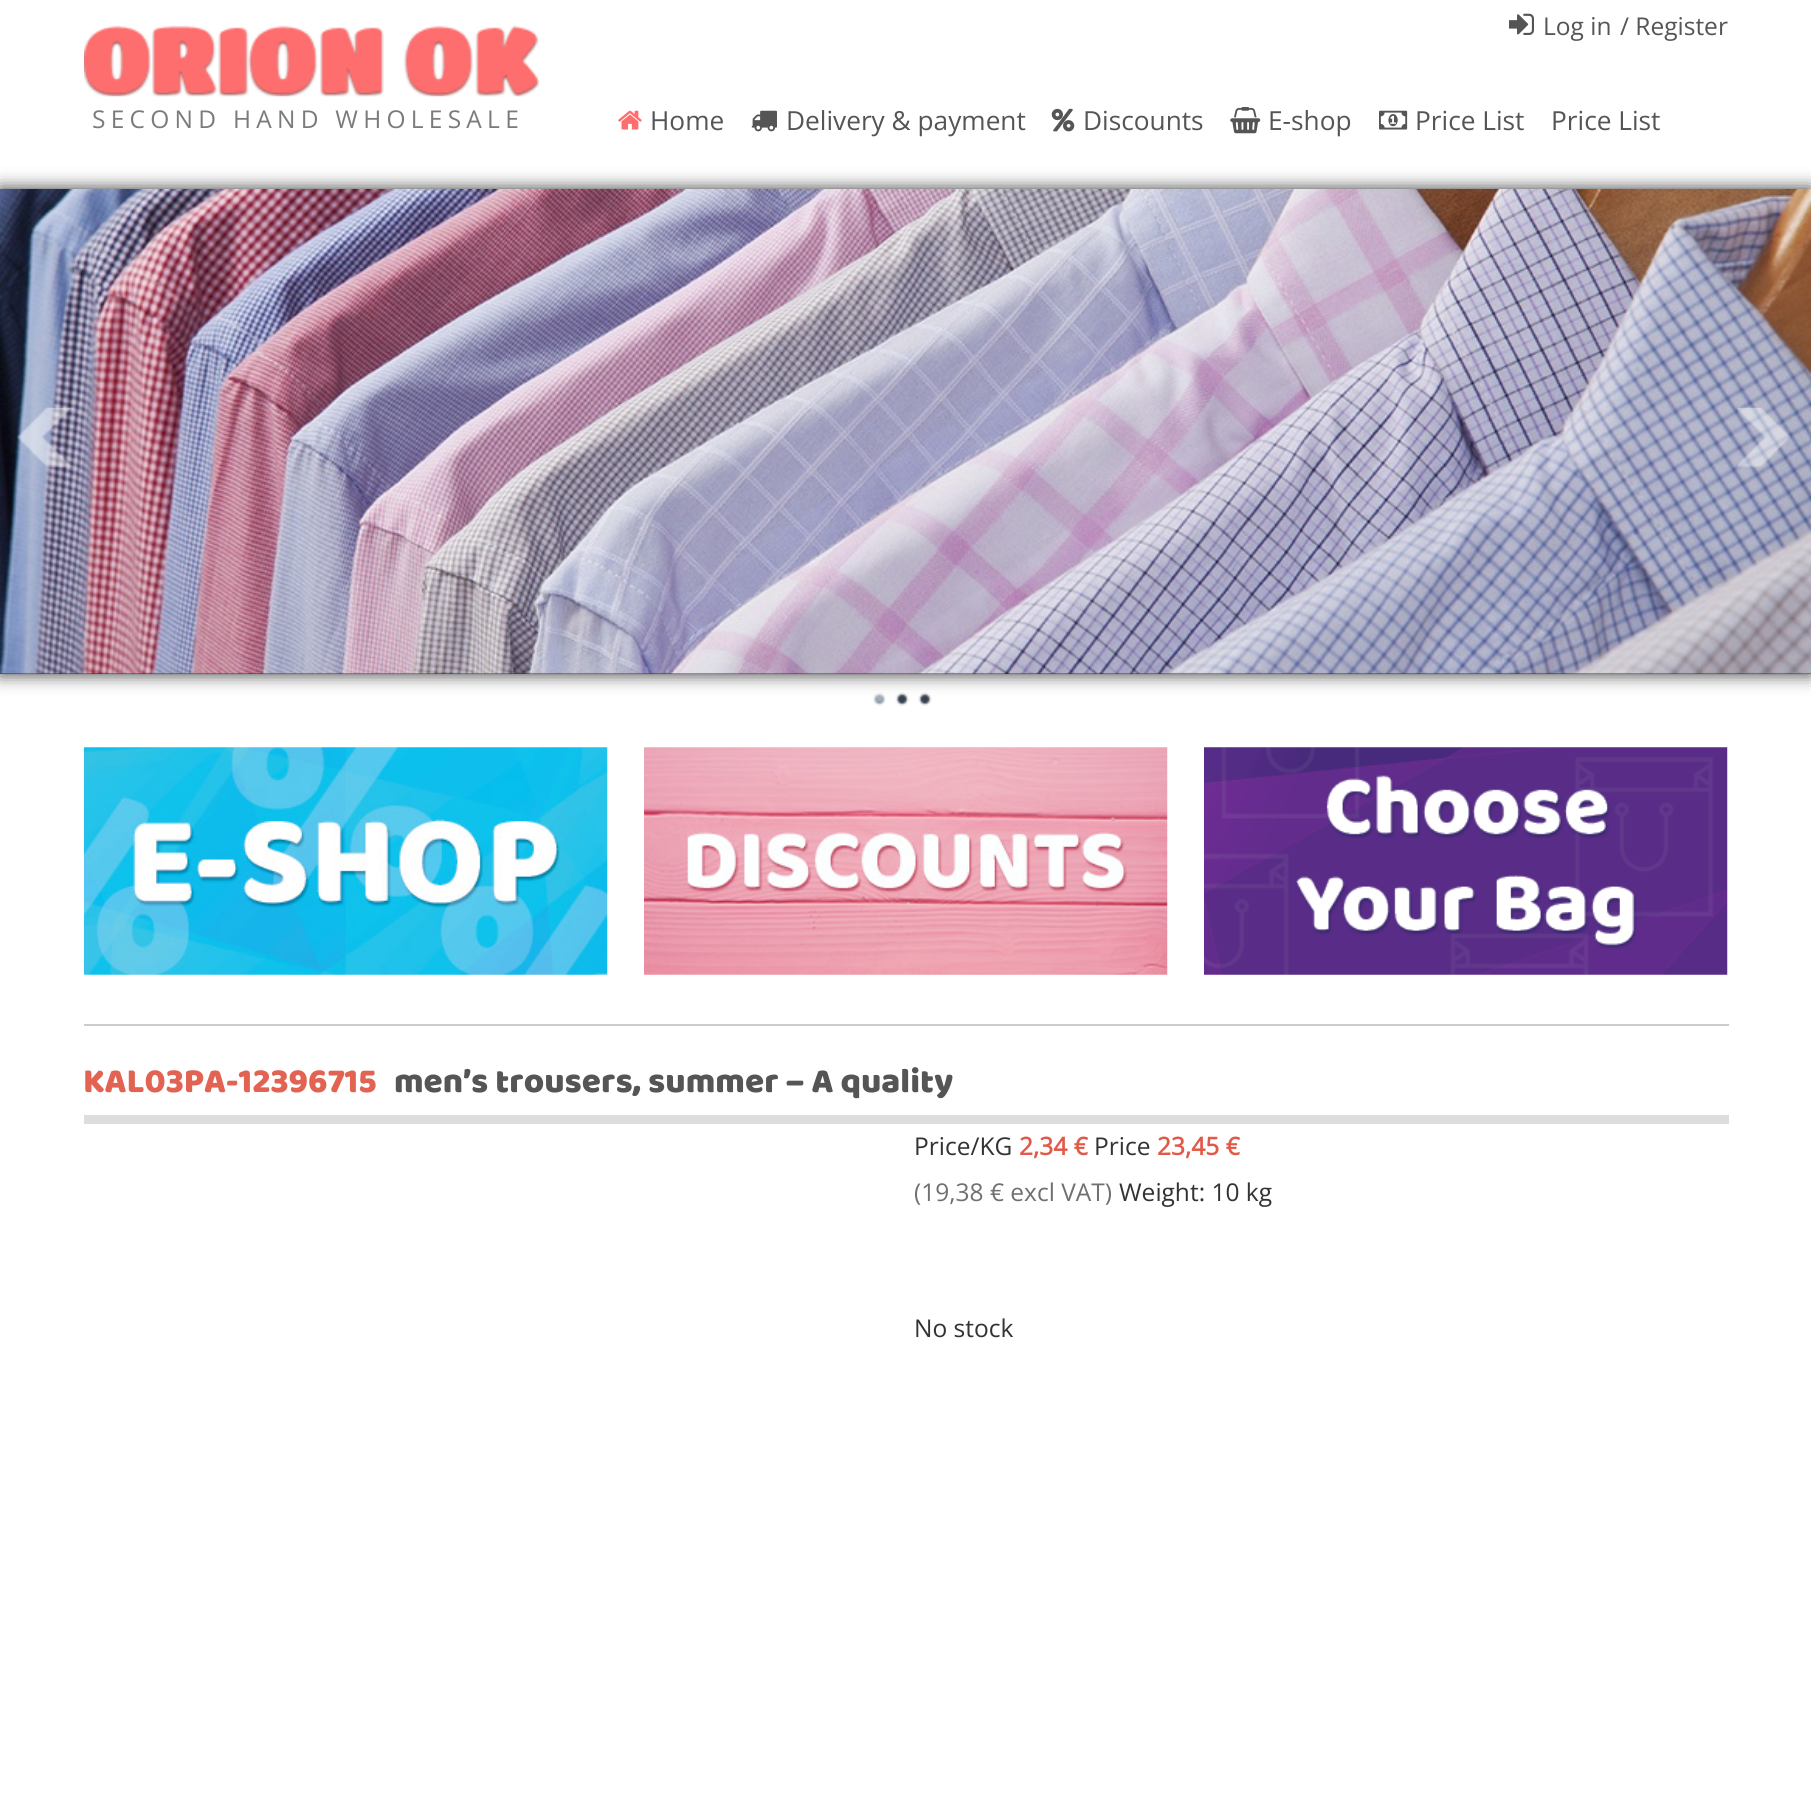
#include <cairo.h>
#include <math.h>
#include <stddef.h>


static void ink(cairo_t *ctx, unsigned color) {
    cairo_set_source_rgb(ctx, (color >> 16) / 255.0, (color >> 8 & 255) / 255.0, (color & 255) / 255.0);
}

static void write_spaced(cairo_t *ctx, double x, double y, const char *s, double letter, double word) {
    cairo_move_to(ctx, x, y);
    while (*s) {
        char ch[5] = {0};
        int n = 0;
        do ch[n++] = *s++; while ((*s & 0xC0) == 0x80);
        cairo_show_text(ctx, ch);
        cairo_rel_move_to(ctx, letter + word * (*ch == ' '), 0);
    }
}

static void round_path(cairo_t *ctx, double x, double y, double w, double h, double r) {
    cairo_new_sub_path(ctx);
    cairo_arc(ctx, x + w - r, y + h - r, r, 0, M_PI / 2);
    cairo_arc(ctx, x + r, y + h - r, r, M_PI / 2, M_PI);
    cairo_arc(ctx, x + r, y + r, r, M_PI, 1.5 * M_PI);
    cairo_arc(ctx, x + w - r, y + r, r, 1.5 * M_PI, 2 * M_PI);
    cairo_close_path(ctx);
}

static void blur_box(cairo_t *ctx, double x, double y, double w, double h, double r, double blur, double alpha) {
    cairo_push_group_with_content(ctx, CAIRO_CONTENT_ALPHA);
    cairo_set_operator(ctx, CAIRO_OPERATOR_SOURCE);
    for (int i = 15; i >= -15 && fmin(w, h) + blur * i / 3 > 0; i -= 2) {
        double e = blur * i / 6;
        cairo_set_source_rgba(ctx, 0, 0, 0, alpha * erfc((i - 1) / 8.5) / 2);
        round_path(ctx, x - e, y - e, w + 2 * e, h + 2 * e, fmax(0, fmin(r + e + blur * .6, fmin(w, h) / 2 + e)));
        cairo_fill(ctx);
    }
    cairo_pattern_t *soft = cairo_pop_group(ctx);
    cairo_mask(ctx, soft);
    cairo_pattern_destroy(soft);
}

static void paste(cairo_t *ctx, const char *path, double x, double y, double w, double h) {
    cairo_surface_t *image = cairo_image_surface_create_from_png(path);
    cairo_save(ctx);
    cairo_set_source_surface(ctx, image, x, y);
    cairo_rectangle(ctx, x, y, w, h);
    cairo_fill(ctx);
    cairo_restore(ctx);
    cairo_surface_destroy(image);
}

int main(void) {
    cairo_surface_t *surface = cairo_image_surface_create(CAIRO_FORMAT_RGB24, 1811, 1813);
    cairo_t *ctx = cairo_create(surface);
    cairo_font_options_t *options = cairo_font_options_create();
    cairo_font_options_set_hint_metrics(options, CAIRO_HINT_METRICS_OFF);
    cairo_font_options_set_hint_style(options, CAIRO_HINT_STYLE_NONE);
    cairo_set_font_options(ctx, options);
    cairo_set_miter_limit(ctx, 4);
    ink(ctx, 0xFFFFFF);
    cairo_paint(ctx);
    paste(ctx, "media/1.png", 1509, 13, 25, 22);
    cairo_select_font_face(ctx, "Open Sans", CAIRO_FONT_SLANT_NORMAL, CAIRO_FONT_WEIGHT_NORMAL);
    cairo_set_font_size(ctx, 24.5);
    ink(ctx, 0x555555);
    cairo_move_to(ctx, 1543, 35);
    cairo_show_text(ctx, "Log in");
    cairo_move_to(ctx, 1620, 35);
    cairo_show_text(ctx, "/ Register");
    paste(ctx, "media/2.png", 84, 25, 455, 72);
    ink(ctx, 0x7B7B7B);
    write_spaced(ctx, 92, 128, "SECOND HAND WHOLESALE", 5.25, 0);
    paste(ctx, "media/3.png", 618, 110, 24, 20);
    cairo_set_font_size(ctx, 26.25);
    ink(ctx, 0x555555);
    cairo_move_to(ctx, 650, 130);
    cairo_show_text(ctx, "Home");
    paste(ctx, "media/4.png", 751, 110, 26, 22);
    cairo_move_to(ctx, 786, 130);
    cairo_show_text(ctx, "Delivery & payment");
    paste(ctx, "media/5.png", 1051, 108, 24, 24);
    cairo_move_to(ctx, 1083, 130);
    cairo_show_text(ctx, "Discounts");
    paste(ctx, "media/6.png", 1230, 107, 31, 27);
    cairo_move_to(ctx, 1268, 130);
    cairo_show_text(ctx, "E-shop");
    paste(ctx, "media/7.png", 1379, 110, 29, 20);
    cairo_move_to(ctx, 1415, 130);
    cairo_show_text(ctx, "Price List");
    cairo_move_to(ctx, 1551, 130);
    cairo_show_text(ctx, "Price List");
    ink(ctx, 0x333333);
    blur_box(ctx, 0, 189, 1811, 485, 0, 9, 1);
    ink(ctx, 0x202834);
    cairo_rectangle(ctx, 0, 673, 1811, 1);
    cairo_fill(ctx);
    paste(ctx, "media/8.png", 0, 189, 1811, 485);
    paste(ctx, "media/9.png", 17, 407, 57, 61);
    paste(ctx, "media/10.png", 1737, 407, 54, 61);
    paste(ctx, "media/11.png", 873, 692, 13, 14);
    paste(ctx, "media/12.png", 895, 692, 14, 14);
    paste(ctx, "media/13.png", 918, 692, 14, 14);
    paste(ctx, "media/14.png", 84, 747, 524, 228);
    paste(ctx, "media/15.png", 644, 747, 524, 228);
    paste(ctx, "media/16.png", 1204, 747, 524, 228);
    ink(ctx, 0xCCCCCC);
    cairo_rectangle(ctx, 84, 1024, 1645, 2);
    cairo_fill(ctx);
    ink(ctx, 0xDDDDDD);
    cairo_rectangle(ctx, 84, 1115, 1645, 9);
    cairo_fill(ctx);
    cairo_select_font_face(ctx, "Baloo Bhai", CAIRO_FONT_SLANT_NORMAL, CAIRO_FONT_WEIGHT_NORMAL);
    cairo_set_font_size(ctx, 35);
    ink(ctx, 0xE26352);
    cairo_move_to(ctx, 83, 1092);
    cairo_show_text(ctx, "KAL03PA-12396715");
    ink(ctx, 0x555555);
    cairo_move_to(ctx, 394, 1092);
    cairo_show_text(ctx, "men’s trousers, summer – A quality");
    cairo_select_font_face(ctx, "Open Sans", CAIRO_FONT_SLANT_NORMAL, CAIRO_FONT_WEIGHT_NORMAL);
    cairo_set_font_size(ctx, 24.5);
    ink(ctx, 0x333333);
    cairo_move_to(ctx, 914, 1155);
    cairo_show_text(ctx, "Price/KG");
    cairo_select_font_face(ctx, "Open Sans", CAIRO_FONT_SLANT_NORMAL, CAIRO_FONT_WEIGHT_BOLD);
    ink(ctx, 0xE15A48);
    cairo_move_to(ctx, 1019, 1155);
    cairo_show_text(ctx, "2,34 €");
    cairo_select_font_face(ctx, "Open Sans", CAIRO_FONT_SLANT_NORMAL, CAIRO_FONT_WEIGHT_NORMAL);
    ink(ctx, 0x333333);
    cairo_move_to(ctx, 1094, 1155);
    cairo_show_text(ctx, "Price");
    cairo_select_font_face(ctx, "Open Sans", CAIRO_FONT_SLANT_NORMAL, CAIRO_FONT_WEIGHT_BOLD);
    ink(ctx, 0xE15A48);
    cairo_move_to(ctx, 1157, 1155);
    cairo_show_text(ctx, "23,45 €");
    cairo_select_font_face(ctx, "Open Sans", CAIRO_FONT_SLANT_NORMAL, CAIRO_FONT_WEIGHT_NORMAL);
    ink(ctx, 0x707070);
    cairo_move_to(ctx, 914, 1201);
    cairo_show_text(ctx, "(19,38 € excl VAT)");
    ink(ctx, 0x333333);
    cairo_move_to(ctx, 1119, 1201);
    cairo_show_text(ctx, "Weight: 10 kg");
    cairo_move_to(ctx, 914, 1337);
    cairo_show_text(ctx, "No stock");
    cairo_surface_write_to_png(surface, "image.png");
    cairo_font_options_destroy(options);
    cairo_destroy(ctx);
    cairo_surface_destroy(surface);
    return 0;
}
